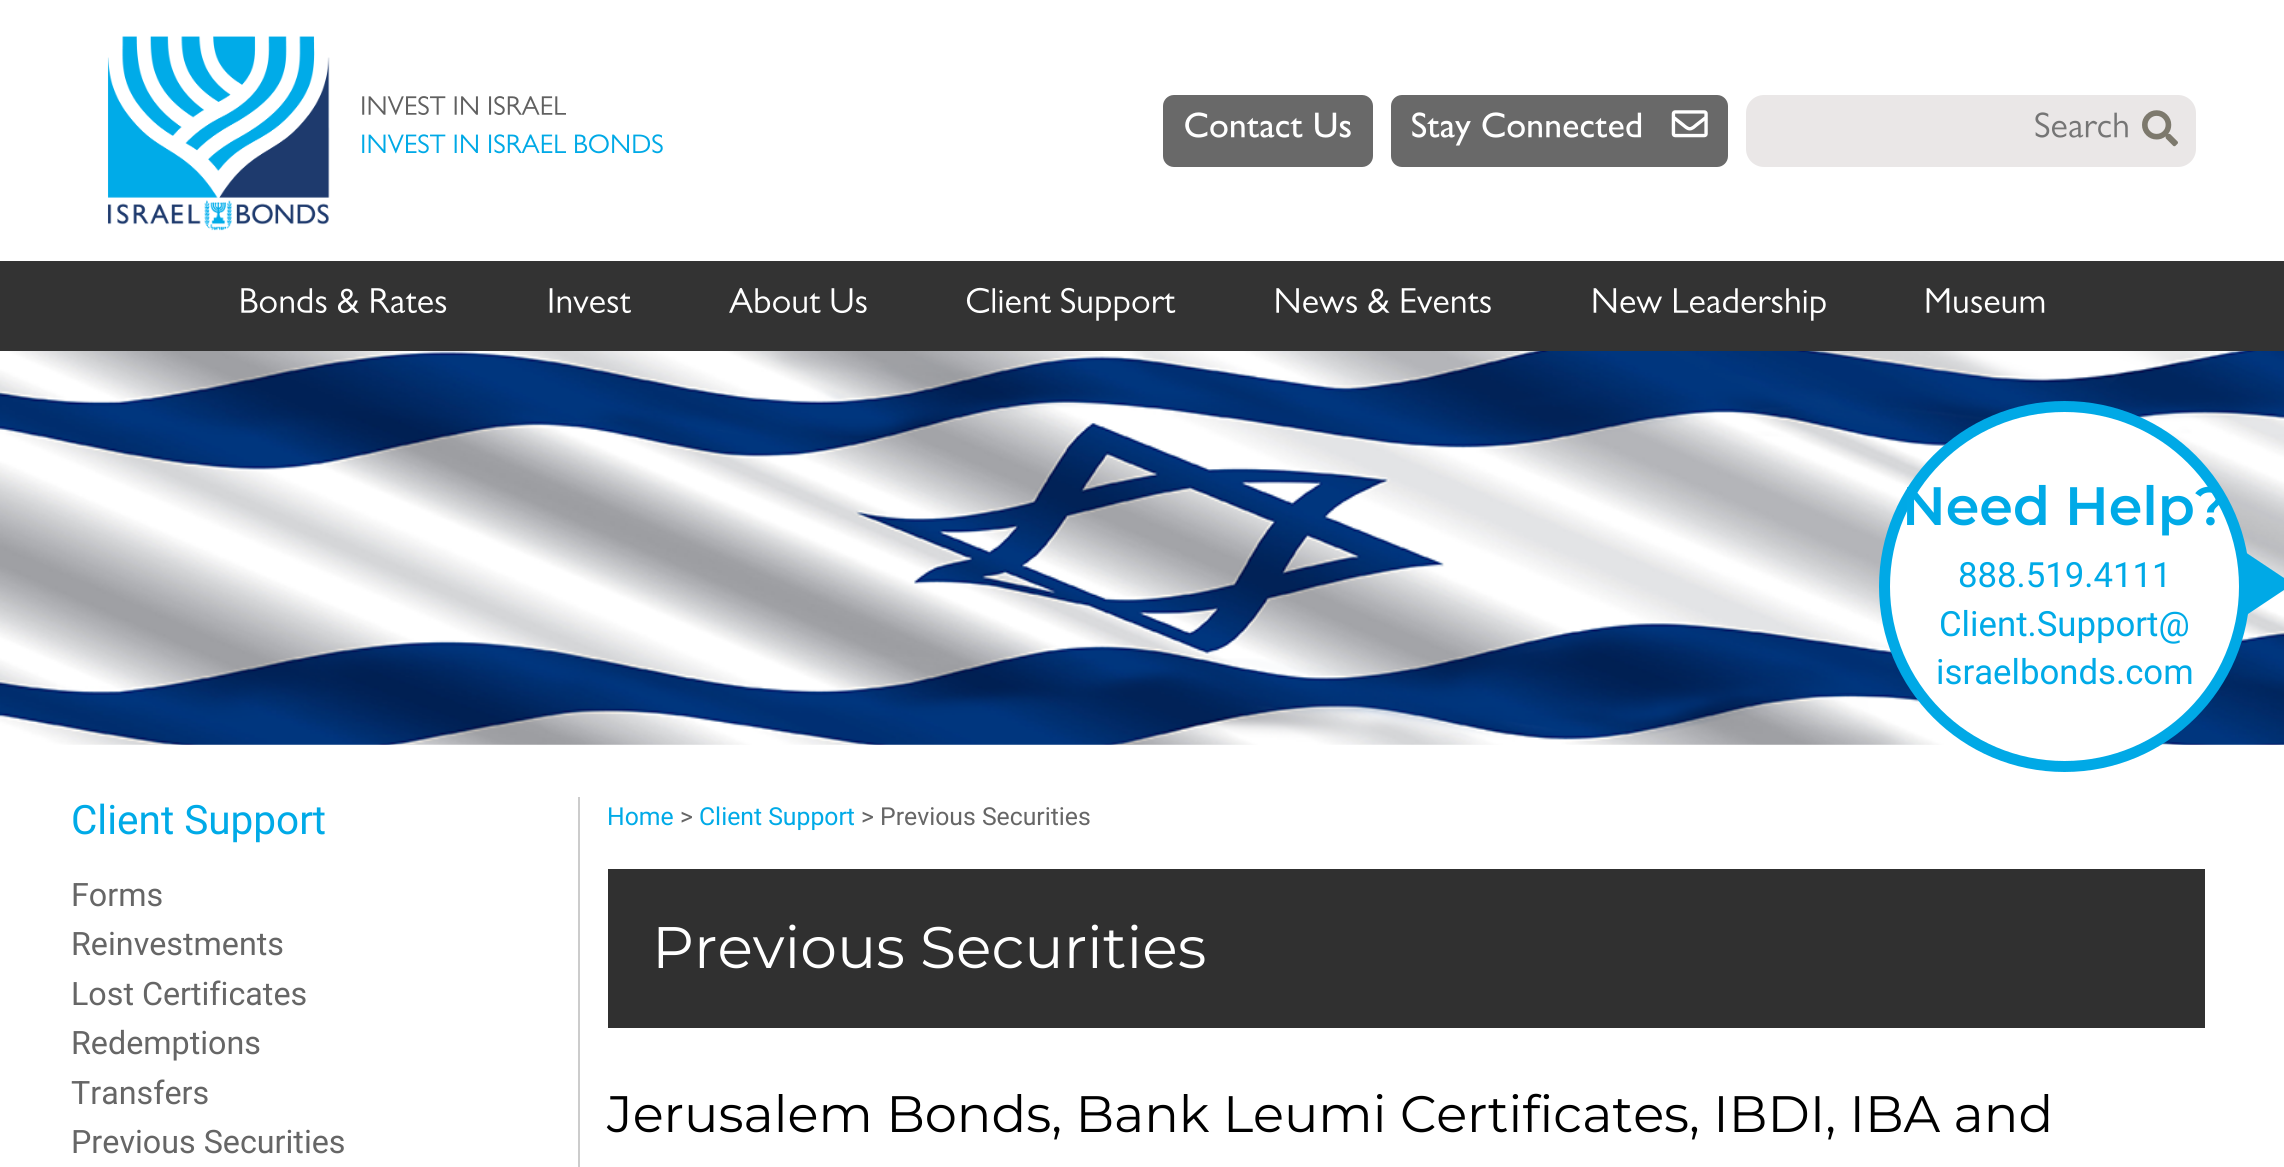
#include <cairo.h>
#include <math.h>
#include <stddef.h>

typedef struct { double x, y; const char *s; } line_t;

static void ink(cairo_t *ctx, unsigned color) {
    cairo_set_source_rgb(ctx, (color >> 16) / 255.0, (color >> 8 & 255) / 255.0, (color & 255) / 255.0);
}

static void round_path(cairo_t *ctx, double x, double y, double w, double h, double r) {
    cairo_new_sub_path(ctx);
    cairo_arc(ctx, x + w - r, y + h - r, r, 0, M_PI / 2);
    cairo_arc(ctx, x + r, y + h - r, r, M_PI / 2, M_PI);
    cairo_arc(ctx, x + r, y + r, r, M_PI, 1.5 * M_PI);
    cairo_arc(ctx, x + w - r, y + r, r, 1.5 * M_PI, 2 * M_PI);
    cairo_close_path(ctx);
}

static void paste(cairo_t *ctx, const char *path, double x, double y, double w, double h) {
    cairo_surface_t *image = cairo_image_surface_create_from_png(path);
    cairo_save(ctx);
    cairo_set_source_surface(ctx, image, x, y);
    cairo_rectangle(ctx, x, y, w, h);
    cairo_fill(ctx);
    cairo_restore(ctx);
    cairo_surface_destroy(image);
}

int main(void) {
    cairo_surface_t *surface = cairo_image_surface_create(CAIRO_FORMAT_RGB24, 2284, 1167);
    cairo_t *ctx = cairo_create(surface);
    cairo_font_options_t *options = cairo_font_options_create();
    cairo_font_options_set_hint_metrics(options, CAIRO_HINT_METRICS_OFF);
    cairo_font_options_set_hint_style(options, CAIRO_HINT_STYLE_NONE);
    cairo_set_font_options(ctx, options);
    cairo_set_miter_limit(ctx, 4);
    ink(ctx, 0xFFFFFF);
    cairo_paint(ctx);
    paste(ctx, "media/1.png", 107, 36, 223, 195);
    paste(ctx, "media/2.png", 362, 96, 204, 19);
    paste(ctx, "media/3.png", 362, 134, 301, 20);
    ink(ctx, 0x696969);
    round_path(ctx, 1164, 96, 208, 70, 10);
    cairo_fill_preserve(ctx);
    cairo_stroke(ctx);
    paste(ctx, "media/4.png", 1185, 112, 166, 26);
    round_path(ctx, 1392, 96, 335, 70, 10);
    cairo_fill_preserve(ctx);
    cairo_stroke(ctx);
    paste(ctx, "media/5.png", 1412, 112, 230, 34);
    paste(ctx, "media/6.png", 1671, 110, 37, 28);
    ink(ctx, 0xEAE7E7);
    round_path(ctx, 1746, 95, 450, 72, 18);
    cairo_fill(ctx);
    paste(ctx, "media/7.png", 2035, 112, 93, 26);
    paste(ctx, "media/8.png", 2142, 110, 36, 37);
    ink(ctx, 0x333333);
    cairo_rectangle(ctx, 0, 261, 2284, 90);
    cairo_fill(ctx);
    paste(ctx, "media/9.png", 241, 288, 206, 26);
    paste(ctx, "media/10.png", 549, 288, 82, 26);
    paste(ctx, "media/11.png", 729, 288, 138, 26);
    paste(ctx, "media/12.png", 966, 287, 210, 34);
    paste(ctx, "media/13.png", 1276, 288, 215, 26);
    paste(ctx, "media/14.png", 1593, 288, 233, 33);
    paste(ctx, "media/15.png", 1926, 288, 119, 26);
    paste(ctx, "media/16.png", 0, 351, 2284, 394);
    ink(ctx, 0xFFFFFF);
    cairo_arc(ctx, 2064.5, 586.5, 180, 0, 2 * M_PI);
    cairo_fill_preserve(ctx);
    ink(ctx, 0x00A9E6);
    cairo_set_line_width(ctx, 11);
    cairo_stroke(ctx);
    cairo_select_font_face(ctx, "Montserrat SemiBold", CAIRO_FONT_SLANT_NORMAL, CAIRO_FONT_WEIGHT_NORMAL);
    cairo_set_font_size(ctx, 54);
    ink(ctx, 0x00AAE7);
    cairo_move_to(ctx, 1902, 525);
    cairo_show_text(ctx, "Need Help?");
    cairo_select_font_face(ctx, "Roboto", CAIRO_FONT_SLANT_NORMAL, CAIRO_FONT_WEIGHT_NORMAL);
    cairo_set_font_size(ctx, 34.75);
    {
        static const line_t items[] = {
            {1958, 587, "888.519.4111"},
            {1939, 636, "Client.Support@"},
            {1936, 684, "israelbonds.com"},
        };
        for (size_t i = 0; i < sizeof items / sizeof *items; i++) {
            cairo_move_to(ctx, items[i].x, items[i].y);
            cairo_show_text(ctx, items[i].s);
        }
    }
    ink(ctx, 0x00A9E6);
    cairo_new_path(ctx);
    cairo_move_to(ctx, 2239, 620);
    cairo_line_to(ctx, 2239, 548);
    cairo_line_to(ctx, 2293, 584);
    cairo_close_path(ctx);
    cairo_fill(ctx);
    ink(ctx, 0xCCCCCC);
    cairo_rectangle(ctx, 578, 797, 2, 370);
    cairo_fill(ctx);
    cairo_set_font_size(ctx, 40.5);
    ink(ctx, 0x00AAE7);
    cairo_move_to(ctx, 71, 834);
    cairo_show_text(ctx, "Client Support");
    cairo_set_font_size(ctx, 32.25);
    ink(ctx, 0x666666);
    {
        static const line_t items[] = {
            {71, 906, "Forms"},
            {71, 955, "Reinvestments"},
            {71, 1005, "Lost Certificates"},
            {71, 1054, "Redemptions"},
            {71, 1104, "Transfers"},
            {71, 1153, "Previous Securities"},
        };
        for (size_t i = 0; i < sizeof items / sizeof *items; i++) {
            cairo_move_to(ctx, items[i].x, items[i].y);
            cairo_show_text(ctx, items[i].s);
        }
    }
    cairo_set_font_size(ctx, 24.75);
    ink(ctx, 0x00AAE7);
    cairo_move_to(ctx, 607, 825);
    cairo_show_text(ctx, "Home");
    ink(ctx, 0x666666);
    cairo_move_to(ctx, 680, 825);
    cairo_show_text(ctx, ">");
    ink(ctx, 0x00AAE7);
    cairo_move_to(ctx, 699, 825);
    cairo_show_text(ctx, "Client Support");
    ink(ctx, 0x666666);
    cairo_move_to(ctx, 861, 825);
    cairo_show_text(ctx, "> Previous Securities");
    ink(ctx, 0x303030);
    cairo_rectangle(ctx, 608, 869, 1597, 159);
    cairo_fill(ctx);
    cairo_select_font_face(ctx, "Montserrat", CAIRO_FONT_SLANT_NORMAL, CAIRO_FONT_WEIGHT_NORMAL);
    cairo_set_font_size(ctx, 58.5);
    ink(ctx, 0xFFFFFF);
    cairo_move_to(ctx, 652, 968);
    cairo_show_text(ctx, "Previous Securities");
    cairo_set_font_size(ctx, 51.2);
    ink(ctx, 0x000000);
    cairo_move_to(ctx, 607, 1132);
    cairo_show_text(ctx, "Jerusalem Bonds, Bank Leumi Certificates, IBDI, IBA and");
    cairo_surface_write_to_png(surface, "image.png");
    cairo_font_options_destroy(options);
    cairo_destroy(ctx);
    cairo_surface_destroy(surface);
    return 0;
}
